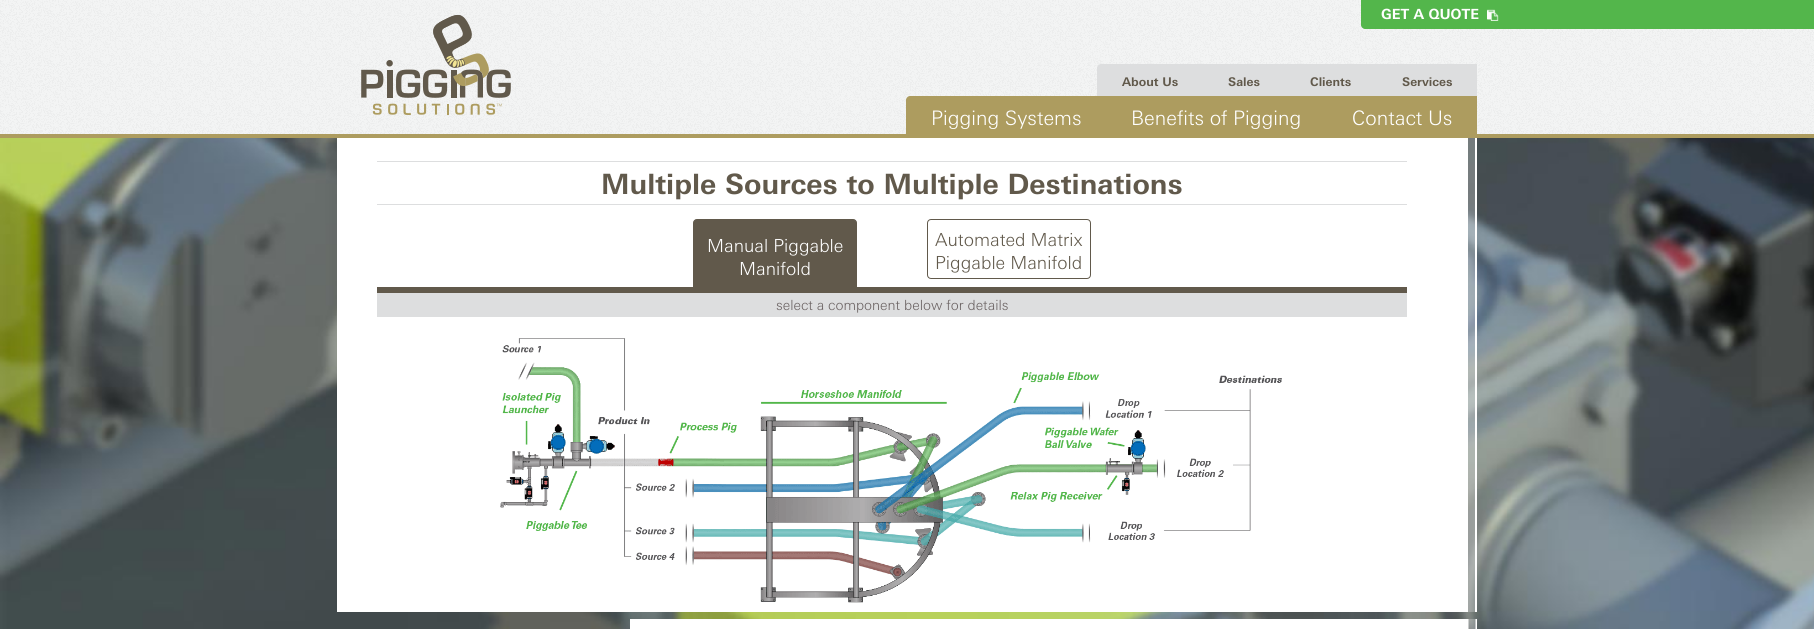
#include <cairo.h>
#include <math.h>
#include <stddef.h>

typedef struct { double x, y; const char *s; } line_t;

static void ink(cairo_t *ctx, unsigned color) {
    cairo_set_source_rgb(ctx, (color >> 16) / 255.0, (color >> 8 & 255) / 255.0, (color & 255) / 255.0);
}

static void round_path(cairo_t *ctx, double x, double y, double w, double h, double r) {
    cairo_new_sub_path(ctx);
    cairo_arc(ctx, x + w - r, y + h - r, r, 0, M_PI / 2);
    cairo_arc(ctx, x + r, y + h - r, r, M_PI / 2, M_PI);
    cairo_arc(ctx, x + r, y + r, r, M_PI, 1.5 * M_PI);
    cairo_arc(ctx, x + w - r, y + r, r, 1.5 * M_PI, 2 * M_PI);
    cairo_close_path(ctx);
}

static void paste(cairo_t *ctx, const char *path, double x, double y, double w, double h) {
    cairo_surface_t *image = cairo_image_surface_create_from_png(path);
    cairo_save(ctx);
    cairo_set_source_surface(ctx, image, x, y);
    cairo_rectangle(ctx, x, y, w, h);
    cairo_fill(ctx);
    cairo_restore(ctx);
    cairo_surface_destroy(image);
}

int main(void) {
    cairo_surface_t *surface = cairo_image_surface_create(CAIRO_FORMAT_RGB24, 1814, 629);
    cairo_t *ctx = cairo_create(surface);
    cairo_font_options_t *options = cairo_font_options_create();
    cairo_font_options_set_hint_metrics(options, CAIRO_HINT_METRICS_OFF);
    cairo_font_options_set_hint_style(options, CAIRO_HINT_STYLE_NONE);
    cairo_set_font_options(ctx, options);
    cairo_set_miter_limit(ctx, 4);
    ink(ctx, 0xFFFFFF);
    cairo_paint(ctx);
    ink(ctx, 0xDDDEDF);
    cairo_rectangle(ctx, 0, 0, 1814, 134);
    cairo_fill(ctx);
    paste(ctx, "media/1.png", 0, 0, 1814, 134);
    ink(ctx, 0xAD9C5F);
    cairo_rectangle(ctx, 0, 134, 1814, 4);
    cairo_fill(ctx);
    ink(ctx, 0x53B64B);
    cairo_new_path(ctx);
    cairo_move_to(ctx, 1361, 0);
    cairo_line_to(ctx, 1814, 0);
    cairo_line_to(ctx, 1814, 29);
    cairo_line_to(ctx, 1365, 29);
    cairo_curve_to(ctx, 1363, 29, 1361, 27, 1361, 25);
    cairo_close_path(ctx);
    cairo_fill(ctx);
    cairo_select_font_face(ctx, "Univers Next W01", CAIRO_FONT_SLANT_NORMAL, CAIRO_FONT_WEIGHT_BOLD);
    cairo_set_font_size(ctx, 14);
    ink(ctx, 0xFFFFFF);
    cairo_move_to(ctx, 1381, 19);
    cairo_show_text(ctx, "GET A QUOTE");
    paste(ctx, "media/2.png", 1487, 9, 12, 12);
    paste(ctx, "media/3.png", 361, 15, 150, 100);
    ink(ctx, 0xDDDEDF);
    cairo_new_path(ctx);
    cairo_move_to(ctx, 1101, 64);
    cairo_line_to(ctx, 1477, 64);
    cairo_line_to(ctx, 1477, 96);
    cairo_line_to(ctx, 1097, 96);
    cairo_line_to(ctx, 1097, 68);
    cairo_curve_to(ctx, 1097, 66, 1099, 64, 1101, 64);
    cairo_close_path(ctx);
    cairo_fill(ctx);
    cairo_set_font_size(ctx, 12);
    ink(ctx, 0x61594B);
    {
        static const line_t items[] = {
            {1122, 86, "About Us"},
            {1228, 86, "Sales"},
            {1310, 86, "Clients"},
            {1402, 86, "Services"},
        };
        for (size_t i = 0; i < sizeof items / sizeof *items; i++) {
            cairo_move_to(ctx, items[i].x, items[i].y);
            cairo_show_text(ctx, items[i].s);
        }
    }
    ink(ctx, 0xAD9C5F);
    cairo_new_path(ctx);
    cairo_move_to(ctx, 910, 96);
    cairo_line_to(ctx, 1477, 96);
    cairo_line_to(ctx, 1477, 134);
    cairo_line_to(ctx, 906, 134);
    cairo_line_to(ctx, 906, 100);
    cairo_curve_to(ctx, 906, 98, 908, 96, 910, 96);
    cairo_close_path(ctx);
    cairo_fill(ctx);
    cairo_select_font_face(ctx, "Univers Next W01 Light", CAIRO_FONT_SLANT_NORMAL, CAIRO_FONT_WEIGHT_NORMAL);
    cairo_set_font_size(ctx, 20);
    ink(ctx, 0xFFFFFF);
    {
        static const line_t items[] = {
            {931, 125, "Pigging Systems"},
            {1131, 125, "Benefits of Pigging"},
            {1352, 125, "Contact Us"},
        };
        for (size_t i = 0; i < sizeof items / sizeof *items; i++) {
            cairo_move_to(ctx, items[i].x, items[i].y);
            cairo_show_text(ctx, items[i].s);
        }
    }
    paste(ctx, "media/4.png", 0, 138, 1814, 491);
    paste(ctx, "media/5.png", 337, 138, 1140, 474);
    ink(ctx, 0xDDDEDF);
    cairo_rectangle(ctx, 377, 161, 1030, 1);
    cairo_fill(ctx);
    cairo_rectangle(ctx, 377, 204, 1030, 1);
    cairo_fill(ctx);
    cairo_select_font_face(ctx, "Univers Next W01", CAIRO_FONT_SLANT_NORMAL, CAIRO_FONT_WEIGHT_BOLD);
    cairo_set_font_size(ctx, 28);
    ink(ctx, 0x61594B);
    cairo_move_to(ctx, 601, 194);
    cairo_show_text(ctx, "Multiple Sources to Multiple Destinations");
    cairo_rectangle(ctx, 377, 287, 1030, 6);
    cairo_fill(ctx);
    cairo_new_path(ctx);
    cairo_move_to(ctx, 697, 219.5);
    cairo_line_to(ctx, 853, 219.5);
    cairo_curve_to(ctx, 855, 219.5, 856.5, 221, 856.5, 223);
    cairo_line_to(ctx, 856.5, 289.5);
    cairo_line_to(ctx, 693.5, 289.5);
    cairo_line_to(ctx, 693.5, 223);
    cairo_curve_to(ctx, 693.5, 221, 695, 219.5, 697, 219.5);
    cairo_close_path(ctx);
    cairo_fill_preserve(ctx);
    cairo_set_line_width(ctx, 1);
    cairo_stroke(ctx);
    cairo_select_font_face(ctx, "Univers Next W01 Light", CAIRO_FONT_SLANT_NORMAL, CAIRO_FONT_WEIGHT_NORMAL);
    cairo_set_font_size(ctx, 18);
    ink(ctx, 0xFFFFFF);
    cairo_move_to(ctx, 707, 252);
    cairo_show_text(ctx, "Manual Piggable");
    cairo_move_to(ctx, 739, 275);
    cairo_show_text(ctx, "Manifold");
    round_path(ctx, 927.5, 219.5, 163, 59, 3.5);
    ink(ctx, 0x61594B);
    cairo_stroke(ctx);
    cairo_move_to(ctx, 935, 246);
    cairo_show_text(ctx, "Automated Matrix");
    cairo_move_to(ctx, 935, 269);
    cairo_show_text(ctx, "Piggable Manifold");
    ink(ctx, 0xDDDEDF);
    cairo_rectangle(ctx, 377, 293, 1030, 24);
    cairo_fill(ctx);
    cairo_set_font_size(ctx, 14);
    ink(ctx, 0x696161);
    cairo_move_to(ctx, 776, 310);
    cairo_show_text(ctx, "select a component below for details");
    paste(ctx, "media/6.png", 500, 338, 782, 265);
    paste(ctx, "media/7.png", 630, 619, 847, 10);
    cairo_surface_write_to_png(surface, "image.png");
    cairo_font_options_destroy(options);
    cairo_destroy(ctx);
    cairo_surface_destroy(surface);
    return 0;
}
